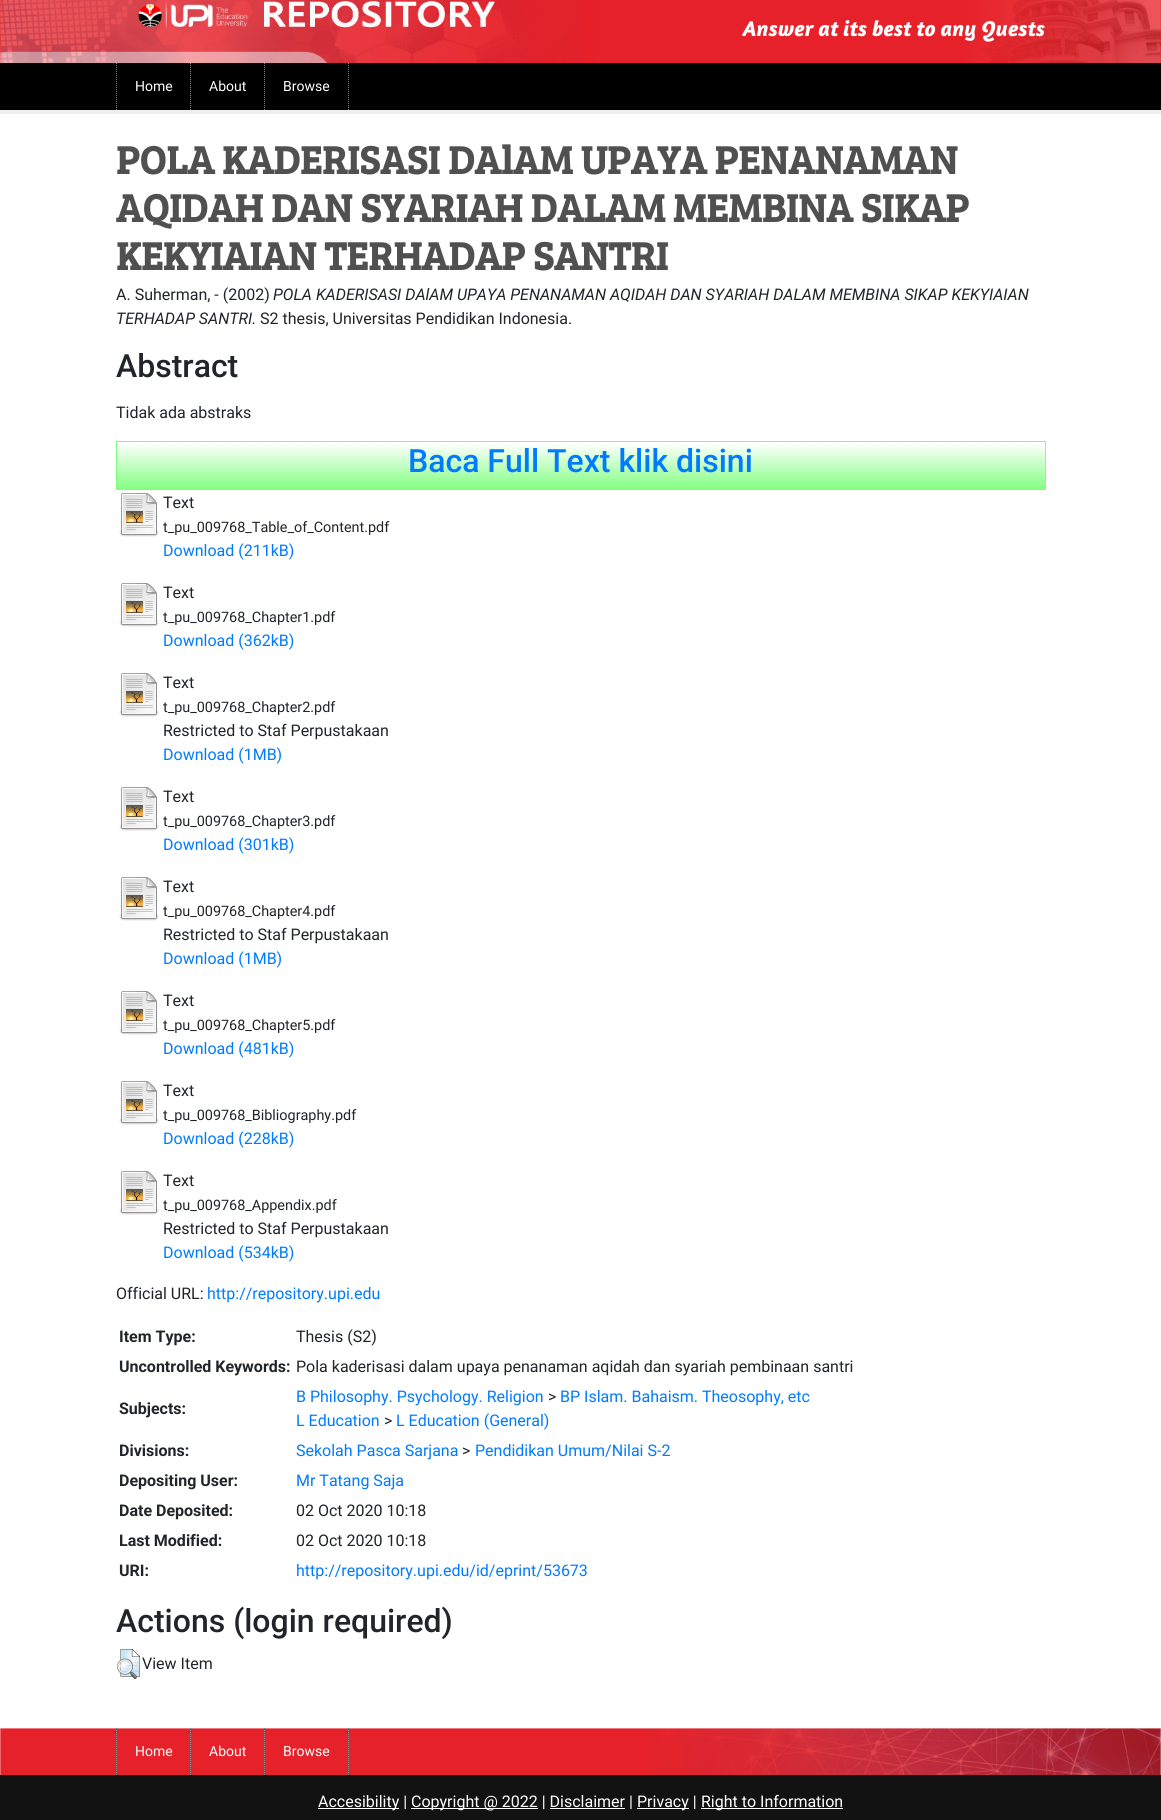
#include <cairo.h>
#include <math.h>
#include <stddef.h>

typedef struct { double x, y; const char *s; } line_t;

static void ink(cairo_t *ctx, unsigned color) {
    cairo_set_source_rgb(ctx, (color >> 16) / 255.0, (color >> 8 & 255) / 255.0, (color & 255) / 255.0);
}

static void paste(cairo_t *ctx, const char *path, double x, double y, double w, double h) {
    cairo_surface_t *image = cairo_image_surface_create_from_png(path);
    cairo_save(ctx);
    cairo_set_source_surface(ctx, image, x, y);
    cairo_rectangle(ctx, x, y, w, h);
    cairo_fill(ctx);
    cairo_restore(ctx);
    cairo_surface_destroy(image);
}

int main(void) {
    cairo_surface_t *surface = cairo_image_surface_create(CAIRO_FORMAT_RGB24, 1161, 1820);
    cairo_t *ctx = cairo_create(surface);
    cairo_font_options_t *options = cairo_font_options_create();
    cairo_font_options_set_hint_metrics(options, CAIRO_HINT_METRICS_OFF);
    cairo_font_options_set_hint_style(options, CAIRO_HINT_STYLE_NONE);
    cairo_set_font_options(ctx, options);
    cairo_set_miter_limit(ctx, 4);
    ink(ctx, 0xFFFFFF);
    cairo_paint(ctx);
    ink(ctx, 0xF32A29);
    cairo_rectangle(ctx, 0, 0, 1161, 63);
    cairo_fill(ctx);
    paste(ctx, "media/1.png", 0, 0, 1161, 63);
    paste(ctx, "media/2.png", 138, 1, 357, 28);
    cairo_select_font_face(ctx, "Amaranth", CAIRO_FONT_SLANT_ITALIC, CAIRO_FONT_WEIGHT_BOLD);
    cairo_set_font_size(ctx, 22);
    ink(ctx, 0xFFFFFF);
    cairo_move_to(ctx, 743, 36);
    cairo_show_text(ctx, "Answer at its best to any Quests");
    ink(ctx, 0x000000);
    cairo_rectangle(ctx, 0, 63, 1161, 47);
    cairo_fill(ctx);
    cairo_new_path(ctx);
    cairo_move_to(ctx, 116.5, 63);
    cairo_line_to(ctx, 116.5, 110);
    ink(ctx, 0x888888);
    cairo_set_line_width(ctx, 1);
    cairo_set_dash(ctx, (double[]){1, 1}, 2, 0);
    cairo_stroke(ctx);
    cairo_select_font_face(ctx, "Roboto", CAIRO_FONT_SLANT_NORMAL, CAIRO_FONT_WEIGHT_NORMAL);
    cairo_set_font_size(ctx, 14);
    ink(ctx, 0xFFFFFF);
    cairo_move_to(ctx, 135, 91);
    cairo_show_text(ctx, "Home");
    cairo_new_path(ctx);
    cairo_move_to(ctx, 190.5, 63);
    cairo_line_to(ctx, 190.5, 110);
    ink(ctx, 0x888888);
    cairo_stroke(ctx);
    ink(ctx, 0xFFFFFF);
    cairo_move_to(ctx, 209, 91);
    cairo_show_text(ctx, "About");
    cairo_new_path(ctx);
    cairo_move_to(ctx, 264.5, 63);
    cairo_line_to(ctx, 264.5, 110);
    ink(ctx, 0x888888);
    cairo_stroke(ctx);
    ink(ctx, 0xFFFFFF);
    cairo_move_to(ctx, 283, 91);
    cairo_show_text(ctx, "Browse");
    cairo_new_path(ctx);
    cairo_move_to(ctx, 348.5, 63);
    cairo_line_to(ctx, 348.5, 110);
    ink(ctx, 0x888888);
    cairo_stroke(ctx);
    ink(ctx, 0xEEEEEE);
    cairo_rectangle(ctx, 0, 110, 1161, 4);
    cairo_fill(ctx);
    cairo_select_font_face(ctx, "Bree Serif", CAIRO_FONT_SLANT_NORMAL, CAIRO_FONT_WEIGHT_BOLD);
    cairo_set_font_size(ctx, 40);
    ink(ctx, 0x505050);
    {
        static const line_t items[] = {
            {116, 174, "POLA KADERISASI DAlAM UPAYA PENANAMAN"},
            {116, 222, "AQIDAH DAN SYARIAH DALAM MEMBINA SIKAP"},
            {116, 270, "KEKYIAIAN TERHADAP SANTRI"},
        };
        for (size_t i = 0; i < sizeof items / sizeof *items; i++) {
            cairo_move_to(ctx, items[i].x, items[i].y);
            cairo_show_text(ctx, items[i].s);
        }
    }
    cairo_select_font_face(ctx, "Roboto", CAIRO_FONT_SLANT_NORMAL, CAIRO_FONT_WEIGHT_NORMAL);
    cairo_set_font_size(ctx, 16);
    ink(ctx, 0x212529);
    cairo_move_to(ctx, 116, 300);
    cairo_show_text(ctx, "A. Suherman, - (2002)");
    cairo_select_font_face(ctx, "Roboto", CAIRO_FONT_SLANT_ITALIC, CAIRO_FONT_WEIGHT_NORMAL);
    cairo_move_to(ctx, 273, 300);
    cairo_show_text(ctx, "POLA KADERISASI DAlAM UPAYA PENANAMAN AQIDAH DAN SYARIAH DALAM MEMBINA SIKAP KEKYIAIAN");
    cairo_move_to(ctx, 116, 324);
    cairo_show_text(ctx, "TERHADAP SANTRI.");
    cairo_select_font_face(ctx, "Roboto", CAIRO_FONT_SLANT_NORMAL, CAIRO_FONT_WEIGHT_NORMAL);
    cairo_move_to(ctx, 260, 324);
    cairo_show_text(ctx, "S2 thesis, Universitas Pendidikan Indonesia.");
    cairo_select_font_face(ctx, "Roboto Medium", CAIRO_FONT_SLANT_NORMAL, CAIRO_FONT_WEIGHT_NORMAL);
    cairo_set_font_size(ctx, 32);
    cairo_move_to(ctx, 116, 377);
    cairo_show_text(ctx, "Abstract");
    cairo_select_font_face(ctx, "Roboto", CAIRO_FONT_SLANT_NORMAL, CAIRO_FONT_WEIGHT_NORMAL);
    cairo_set_font_size(ctx, 16);
    cairo_move_to(ctx, 116, 418);
    cairo_show_text(ctx, "Tidak ada abstraks");
    ink(ctx, 0x80FF80);
    cairo_rectangle(ctx, 117, 443, 928, 46);
    cairo_fill(ctx);
    paste(ctx, "media/3.png", 117, 442, 928, 47);
    cairo_rectangle(ctx, 116.5, 441.5, 929, 48);
    cairo_set_dash(ctx, NULL, 0, 0);
    cairo_stroke(ctx);
    cairo_select_font_face(ctx, "Roboto Medium", CAIRO_FONT_SLANT_NORMAL, CAIRO_FONT_WEIGHT_NORMAL);
    cairo_set_font_size(ctx, 32);
    ink(ctx, 0x007BFF);
    cairo_move_to(ctx, 408, 472);
    cairo_show_text(ctx, "Baca Full Text klik disini");
    paste(ctx, "media/4.png", 119, 493, 40, 44);
    cairo_select_font_face(ctx, "Roboto", CAIRO_FONT_SLANT_NORMAL, CAIRO_FONT_WEIGHT_NORMAL);
    cairo_set_font_size(ctx, 16);
    ink(ctx, 0x212529);
    cairo_move_to(ctx, 163, 508);
    cairo_show_text(ctx, "Text");
    cairo_set_font_size(ctx, 14.4);
    cairo_move_to(ctx, 163, 532);
    cairo_show_text(ctx, "t_pu_009768_Table_of_Content.pdf");
    cairo_set_font_size(ctx, 16);
    ink(ctx, 0x007BFF);
    cairo_move_to(ctx, 163, 556);
    cairo_show_text(ctx, "Download (211kB)");
    paste(ctx, "media/4.png", 119, 583, 40, 44);
    ink(ctx, 0x212529);
    cairo_move_to(ctx, 163, 598);
    cairo_show_text(ctx, "Text");
    cairo_set_font_size(ctx, 14.4);
    cairo_move_to(ctx, 163, 622);
    cairo_show_text(ctx, "t_pu_009768_Chapter1.pdf");
    cairo_set_font_size(ctx, 16);
    ink(ctx, 0x007BFF);
    cairo_move_to(ctx, 163, 646);
    cairo_show_text(ctx, "Download (362kB)");
    paste(ctx, "media/4.png", 119, 673, 40, 44);
    ink(ctx, 0x212529);
    cairo_move_to(ctx, 163, 688);
    cairo_show_text(ctx, "Text");
    cairo_set_font_size(ctx, 14.4);
    cairo_move_to(ctx, 163, 712);
    cairo_show_text(ctx, "t_pu_009768_Chapter2.pdf");
    cairo_set_font_size(ctx, 16);
    cairo_move_to(ctx, 163, 736);
    cairo_show_text(ctx, "Restricted to Staf Perpustakaan");
    ink(ctx, 0x007BFF);
    cairo_move_to(ctx, 163, 760);
    cairo_show_text(ctx, "Download (1MB)");
    paste(ctx, "media/4.png", 119, 787, 40, 44);
    ink(ctx, 0x212529);
    cairo_move_to(ctx, 163, 802);
    cairo_show_text(ctx, "Text");
    cairo_set_font_size(ctx, 14.4);
    cairo_move_to(ctx, 163, 826);
    cairo_show_text(ctx, "t_pu_009768_Chapter3.pdf");
    cairo_set_font_size(ctx, 16);
    ink(ctx, 0x007BFF);
    cairo_move_to(ctx, 163, 850);
    cairo_show_text(ctx, "Download (301kB)");
    paste(ctx, "media/4.png", 119, 877, 40, 44);
    ink(ctx, 0x212529);
    cairo_move_to(ctx, 163, 892);
    cairo_show_text(ctx, "Text");
    cairo_set_font_size(ctx, 14.4);
    cairo_move_to(ctx, 163, 916);
    cairo_show_text(ctx, "t_pu_009768_Chapter4.pdf");
    cairo_set_font_size(ctx, 16);
    cairo_move_to(ctx, 163, 940);
    cairo_show_text(ctx, "Restricted to Staf Perpustakaan");
    ink(ctx, 0x007BFF);
    cairo_move_to(ctx, 163, 964);
    cairo_show_text(ctx, "Download (1MB)");
    paste(ctx, "media/4.png", 119, 991, 40, 44);
    ink(ctx, 0x212529);
    cairo_move_to(ctx, 163, 1006);
    cairo_show_text(ctx, "Text");
    cairo_set_font_size(ctx, 14.4);
    cairo_move_to(ctx, 163, 1030);
    cairo_show_text(ctx, "t_pu_009768_Chapter5.pdf");
    cairo_set_font_size(ctx, 16);
    ink(ctx, 0x007BFF);
    cairo_move_to(ctx, 163, 1054);
    cairo_show_text(ctx, "Download (481kB)");
    paste(ctx, "media/4.png", 119, 1081, 40, 44);
    ink(ctx, 0x212529);
    cairo_move_to(ctx, 163, 1096);
    cairo_show_text(ctx, "Text");
    cairo_set_font_size(ctx, 14.4);
    cairo_move_to(ctx, 163, 1120);
    cairo_show_text(ctx, "t_pu_009768_Bibliography.pdf");
    cairo_set_font_size(ctx, 16);
    ink(ctx, 0x007BFF);
    cairo_move_to(ctx, 163, 1144);
    cairo_show_text(ctx, "Download (228kB)");
    paste(ctx, "media/4.png", 119, 1171, 40, 44);
    ink(ctx, 0x212529);
    cairo_move_to(ctx, 163, 1186);
    cairo_show_text(ctx, "Text");
    cairo_set_font_size(ctx, 14.4);
    cairo_move_to(ctx, 163, 1210);
    cairo_show_text(ctx, "t_pu_009768_Appendix.pdf");
    cairo_set_font_size(ctx, 16);
    cairo_move_to(ctx, 163, 1234);
    cairo_show_text(ctx, "Restricted to Staf Perpustakaan");
    ink(ctx, 0x007BFF);
    cairo_move_to(ctx, 163, 1258);
    cairo_show_text(ctx, "Download (534kB)");
    ink(ctx, 0x212529);
    cairo_move_to(ctx, 116, 1299);
    cairo_show_text(ctx, "Official URL:");
    ink(ctx, 0x007BFF);
    cairo_move_to(ctx, 207, 1299);
    cairo_show_text(ctx, "http://repository.upi.edu");
    cairo_select_font_face(ctx, "Roboto", CAIRO_FONT_SLANT_NORMAL, CAIRO_FONT_WEIGHT_BOLD);
    ink(ctx, 0x212529);
    cairo_move_to(ctx, 119, 1342);
    cairo_show_text(ctx, "Item Type:");
    cairo_select_font_face(ctx, "Roboto", CAIRO_FONT_SLANT_NORMAL, CAIRO_FONT_WEIGHT_NORMAL);
    cairo_move_to(ctx, 296, 1342);
    cairo_show_text(ctx, "Thesis (S2)");
    cairo_select_font_face(ctx, "Roboto", CAIRO_FONT_SLANT_NORMAL, CAIRO_FONT_WEIGHT_BOLD);
    cairo_move_to(ctx, 119, 1372);
    cairo_show_text(ctx, "Uncontrolled Keywords:");
    cairo_select_font_face(ctx, "Roboto", CAIRO_FONT_SLANT_NORMAL, CAIRO_FONT_WEIGHT_NORMAL);
    cairo_move_to(ctx, 296, 1372);
    cairo_show_text(ctx, "Pola kaderisasi dalam upaya penanaman aqidah dan syariah pembinaan santri");
    cairo_select_font_face(ctx, "Roboto", CAIRO_FONT_SLANT_NORMAL, CAIRO_FONT_WEIGHT_BOLD);
    cairo_move_to(ctx, 119, 1414);
    cairo_show_text(ctx, "Subjects:");
    cairo_select_font_face(ctx, "Roboto", CAIRO_FONT_SLANT_NORMAL, CAIRO_FONT_WEIGHT_NORMAL);
    ink(ctx, 0x007BFF);
    cairo_move_to(ctx, 296, 1402);
    cairo_show_text(ctx, "B Philosophy. Psychology. Religion");
    ink(ctx, 0x212529);
    cairo_move_to(ctx, 548, 1402);
    cairo_show_text(ctx, ">");
    ink(ctx, 0x007BFF);
    cairo_move_to(ctx, 560, 1402);
    cairo_show_text(ctx, "BP Islam. Bahaism. Theosophy, etc");
    cairo_move_to(ctx, 296, 1426);
    cairo_show_text(ctx, "L Education");
    ink(ctx, 0x212529);
    cairo_move_to(ctx, 384, 1426);
    cairo_show_text(ctx, ">");
    ink(ctx, 0x007BFF);
    cairo_move_to(ctx, 396, 1426);
    cairo_show_text(ctx, "L Education (General)");
    cairo_select_font_face(ctx, "Roboto", CAIRO_FONT_SLANT_NORMAL, CAIRO_FONT_WEIGHT_BOLD);
    ink(ctx, 0x212529);
    cairo_move_to(ctx, 119, 1456);
    cairo_show_text(ctx, "Divisions:");
    cairo_select_font_face(ctx, "Roboto", CAIRO_FONT_SLANT_NORMAL, CAIRO_FONT_WEIGHT_NORMAL);
    ink(ctx, 0x007BFF);
    cairo_move_to(ctx, 296, 1456);
    cairo_show_text(ctx, "Sekolah Pasca Sarjana");
    ink(ctx, 0x212529);
    cairo_move_to(ctx, 462, 1456);
    cairo_show_text(ctx, ">");
    ink(ctx, 0x007BFF);
    cairo_move_to(ctx, 475, 1456);
    cairo_show_text(ctx, "Pendidikan Umum/Nilai S-2");
    cairo_select_font_face(ctx, "Roboto", CAIRO_FONT_SLANT_NORMAL, CAIRO_FONT_WEIGHT_BOLD);
    ink(ctx, 0x212529);
    cairo_move_to(ctx, 119, 1486);
    cairo_show_text(ctx, "Depositing User:");
    cairo_select_font_face(ctx, "Roboto", CAIRO_FONT_SLANT_NORMAL, CAIRO_FONT_WEIGHT_NORMAL);
    ink(ctx, 0x007BFF);
    cairo_move_to(ctx, 296, 1486);
    cairo_show_text(ctx, "Mr Tatang Saja");
    cairo_select_font_face(ctx, "Roboto", CAIRO_FONT_SLANT_NORMAL, CAIRO_FONT_WEIGHT_BOLD);
    ink(ctx, 0x212529);
    cairo_move_to(ctx, 119, 1516);
    cairo_show_text(ctx, "Date Deposited:");
    cairo_select_font_face(ctx, "Roboto", CAIRO_FONT_SLANT_NORMAL, CAIRO_FONT_WEIGHT_NORMAL);
    cairo_move_to(ctx, 296, 1516);
    cairo_show_text(ctx, "02 Oct 2020 10:18");
    cairo_select_font_face(ctx, "Roboto", CAIRO_FONT_SLANT_NORMAL, CAIRO_FONT_WEIGHT_BOLD);
    cairo_move_to(ctx, 119, 1546);
    cairo_show_text(ctx, "Last Modified:");
    cairo_select_font_face(ctx, "Roboto", CAIRO_FONT_SLANT_NORMAL, CAIRO_FONT_WEIGHT_NORMAL);
    cairo_move_to(ctx, 296, 1546);
    cairo_show_text(ctx, "02 Oct 2020 10:18");
    cairo_select_font_face(ctx, "Roboto", CAIRO_FONT_SLANT_NORMAL, CAIRO_FONT_WEIGHT_BOLD);
    cairo_move_to(ctx, 119, 1576);
    cairo_show_text(ctx, "URI:");
    cairo_select_font_face(ctx, "Roboto", CAIRO_FONT_SLANT_NORMAL, CAIRO_FONT_WEIGHT_NORMAL);
    ink(ctx, 0x007BFF);
    cairo_move_to(ctx, 296, 1576);
    cairo_show_text(ctx, "http://repository.upi.edu/id/eprint/53673");
    cairo_select_font_face(ctx, "Roboto Medium", CAIRO_FONT_SLANT_NORMAL, CAIRO_FONT_WEIGHT_NORMAL);
    cairo_set_font_size(ctx, 32);
    ink(ctx, 0x212529);
    cairo_move_to(ctx, 116, 1632);
    cairo_show_text(ctx, "Actions (login required)");
    paste(ctx, "media/5.png", 117, 1649, 23, 30);
    cairo_select_font_face(ctx, "Roboto", CAIRO_FONT_SLANT_NORMAL, CAIRO_FONT_WEIGHT_NORMAL);
    cairo_set_font_size(ctx, 16);
    cairo_move_to(ctx, 142, 1669);
    cairo_show_text(ctx, "View Item");
    paste(ctx, "media/6.png", 0, 1728, 1161, 47);
    cairo_new_path(ctx);
    cairo_move_to(ctx, 116.5, 1728);
    cairo_line_to(ctx, 116.5, 1775);
    ink(ctx, 0x888888);
    cairo_set_dash(ctx, (double[]){1, 1}, 2, 0);
    cairo_stroke(ctx);
    cairo_set_font_size(ctx, 14);
    ink(ctx, 0xFFFFFF);
    cairo_move_to(ctx, 135, 1756);
    cairo_show_text(ctx, "Home");
    cairo_new_path(ctx);
    cairo_move_to(ctx, 190.5, 1728);
    cairo_line_to(ctx, 190.5, 1775);
    ink(ctx, 0x888888);
    cairo_stroke(ctx);
    ink(ctx, 0xFFFFFF);
    cairo_move_to(ctx, 209, 1756);
    cairo_show_text(ctx, "About");
    cairo_new_path(ctx);
    cairo_move_to(ctx, 264.5, 1728);
    cairo_line_to(ctx, 264.5, 1775);
    ink(ctx, 0x888888);
    cairo_stroke(ctx);
    ink(ctx, 0xFFFFFF);
    cairo_move_to(ctx, 283, 1756);
    cairo_show_text(ctx, "Browse");
    cairo_new_path(ctx);
    cairo_move_to(ctx, 348.5, 1728);
    cairo_line_to(ctx, 348.5, 1775);
    ink(ctx, 0x888888);
    cairo_stroke(ctx);
    ink(ctx, 0x121212);
    cairo_rectangle(ctx, 0, 1775, 1161, 45);
    cairo_fill(ctx);
    ink(ctx, 0xFFFFFF);
    cairo_rectangle(ctx, 318, 1808, 81, 1);
    cairo_fill(ctx);
    cairo_set_font_size(ctx, 16);
    cairo_move_to(ctx, 318, 1807);
    cairo_show_text(ctx, "Accesibility |");
    cairo_rectangle(ctx, 411, 1808, 127, 1);
    cairo_fill(ctx);
    cairo_move_to(ctx, 411, 1807);
    cairo_show_text(ctx, "Copyright @ 2022 | Disclaimer |");
    cairo_rectangle(ctx, 637, 1808, 52, 1);
    cairo_fill(ctx);
    cairo_move_to(ctx, 637, 1807);
    cairo_show_text(ctx, "Privacy |");
    cairo_rectangle(ctx, 701, 1808, 142, 1);
    cairo_fill(ctx);
    cairo_move_to(ctx, 701, 1807);
    cairo_show_text(ctx, "Right to Information");
    cairo_rectangle(ctx, 550, 1808, 75, 1);
    cairo_fill(ctx);
    cairo_surface_write_to_png(surface, "image.png");
    cairo_font_options_destroy(options);
    cairo_destroy(ctx);
    cairo_surface_destroy(surface);
    return 0;
}
